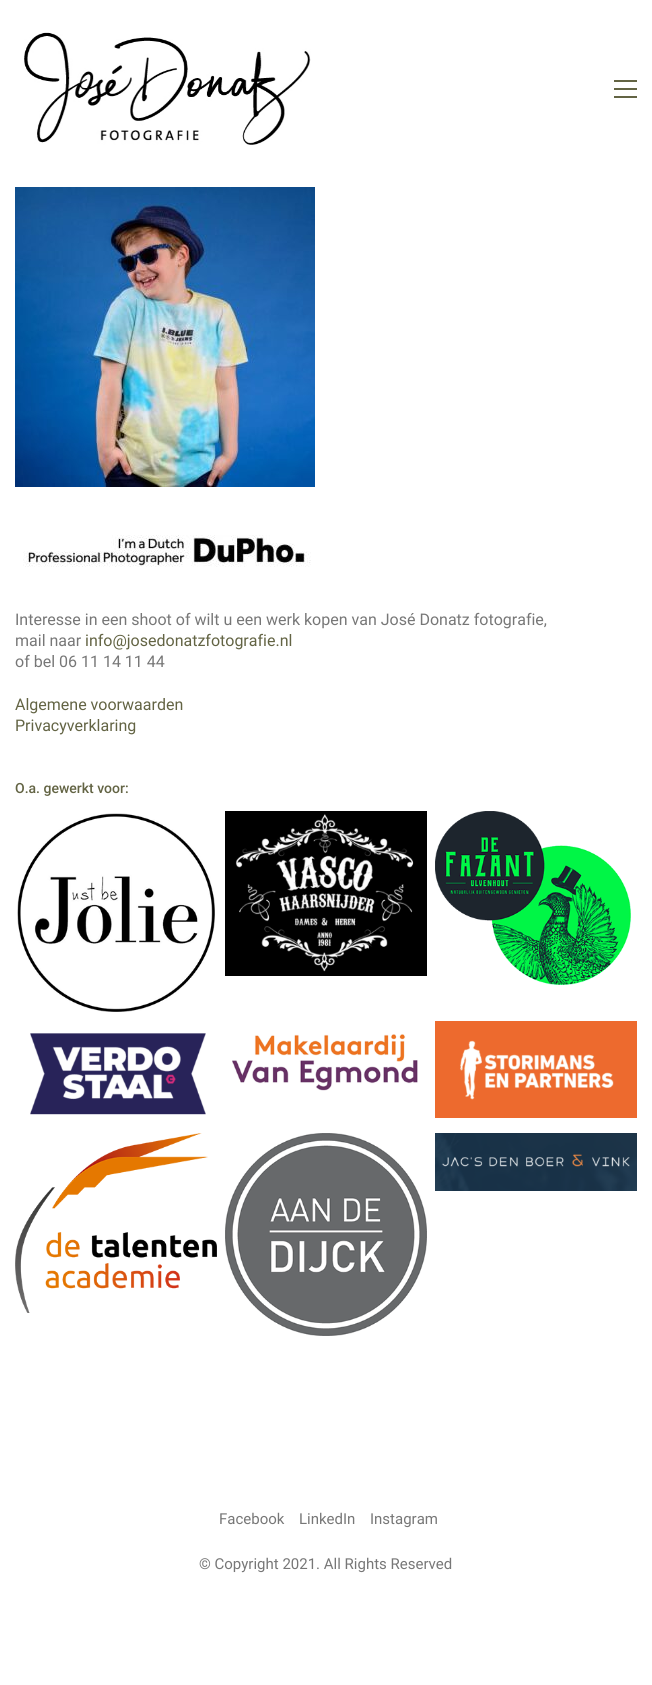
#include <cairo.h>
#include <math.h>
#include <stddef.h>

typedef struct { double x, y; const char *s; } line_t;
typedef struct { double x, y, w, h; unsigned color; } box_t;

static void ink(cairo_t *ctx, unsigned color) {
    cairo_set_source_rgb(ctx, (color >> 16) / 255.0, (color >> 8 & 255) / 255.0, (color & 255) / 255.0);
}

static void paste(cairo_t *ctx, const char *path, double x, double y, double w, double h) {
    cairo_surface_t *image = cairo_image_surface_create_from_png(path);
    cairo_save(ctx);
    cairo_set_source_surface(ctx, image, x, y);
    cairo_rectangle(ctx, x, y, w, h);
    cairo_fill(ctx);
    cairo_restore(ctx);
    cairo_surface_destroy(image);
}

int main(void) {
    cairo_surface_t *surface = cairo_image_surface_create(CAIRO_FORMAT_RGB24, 652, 1685);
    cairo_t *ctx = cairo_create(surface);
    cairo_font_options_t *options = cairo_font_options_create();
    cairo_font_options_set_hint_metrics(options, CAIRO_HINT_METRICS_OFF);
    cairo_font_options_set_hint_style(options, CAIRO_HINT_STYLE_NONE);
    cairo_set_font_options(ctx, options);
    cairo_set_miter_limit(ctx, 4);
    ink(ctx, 0xFFFFFF);
    cairo_paint(ctx);
    paste(ctx, "media/1.png", 24, 32, 287, 113);
    {
        static const box_t items[] = {
            {614, 80, 23, 2, 0x636444},
            {614, 88, 23, 2, 0x636444},
            {614, 96, 23, 2, 0x636444},
        };
        for (size_t i = 0; i < sizeof items / sizeof *items; i++) {
            ink(ctx, items[i].color);
            cairo_rectangle(ctx, items[i].x, items[i].y, items[i].w, items[i].h);
            cairo_fill(ctx);
        }
    }
    paste(ctx, "media/2.png", 15, 187, 300, 300);
    paste(ctx, "media/3.png", 23, 535, 288, 32);
    cairo_select_font_face(ctx, "Roboto", CAIRO_FONT_SLANT_NORMAL, CAIRO_FONT_WEIGHT_NORMAL);
    cairo_set_font_size(ctx, 16);
    ink(ctx, 0x777777);
    cairo_move_to(ctx, 15, 625);
    cairo_show_text(ctx, "Interesse in een shoot of wilt u een werk kopen van José Donatz fotografie,");
    cairo_move_to(ctx, 15, 646);
    cairo_show_text(ctx, "mail naar");
    ink(ctx, 0x636444);
    cairo_move_to(ctx, 85, 646);
    cairo_show_text(ctx, "info@josedonatzfotografie.nl");
    ink(ctx, 0x777777);
    cairo_move_to(ctx, 15, 667);
    cairo_show_text(ctx, "of bel 06 11 14 11 44");
    ink(ctx, 0x636444);
    cairo_move_to(ctx, 15, 710);
    cairo_show_text(ctx, "Algemene voorwaarden");
    cairo_move_to(ctx, 15, 731);
    cairo_show_text(ctx, "Privacyverklaring");
    cairo_select_font_face(ctx, "Roboto Medium", CAIRO_FONT_SLANT_NORMAL, CAIRO_FONT_WEIGHT_NORMAL);
    cairo_set_font_size(ctx, 14);
    cairo_move_to(ctx, 15, 793);
    cairo_show_text(ctx, "O.a. gewerkt voor:");
    paste(ctx, "media/4.png", 17, 813, 198, 199);
    paste(ctx, "media/5.png", 225, 811, 202, 165);
    paste(ctx, "media/6.png", 435, 811, 196, 174);
    paste(ctx, "media/7.png", 30, 1033, 176, 82);
    paste(ctx, "media/8.png", 232, 1034, 186, 57);
    paste(ctx, "media/9.png", 435, 1021, 202, 97);
    paste(ctx, "media/10.png", 15, 1133, 202, 180);
    paste(ctx, "media/11.png", 225, 1133, 202, 203);
    paste(ctx, "media/12.png", 435, 1133, 202, 58);
    cairo_select_font_face(ctx, "Roboto", CAIRO_FONT_SLANT_NORMAL, CAIRO_FONT_WEIGHT_NORMAL);
    cairo_set_font_size(ctx, 15);
    ink(ctx, 0x777777);
    {
        static const line_t items[] = {
            {219, 1524, "Facebook"},
            {299, 1524, "LinkedIn"},
            {370, 1524, "Instagram"},
            {199, 1569, "© Copyright 2021. All Rights Reserved"},
        };
        for (size_t i = 0; i < sizeof items / sizeof *items; i++) {
            cairo_move_to(ctx, items[i].x, items[i].y);
            cairo_show_text(ctx, items[i].s);
        }
    }
    cairo_surface_write_to_png(surface, "image.png");
    cairo_font_options_destroy(options);
    cairo_destroy(ctx);
    cairo_surface_destroy(surface);
    return 0;
}
